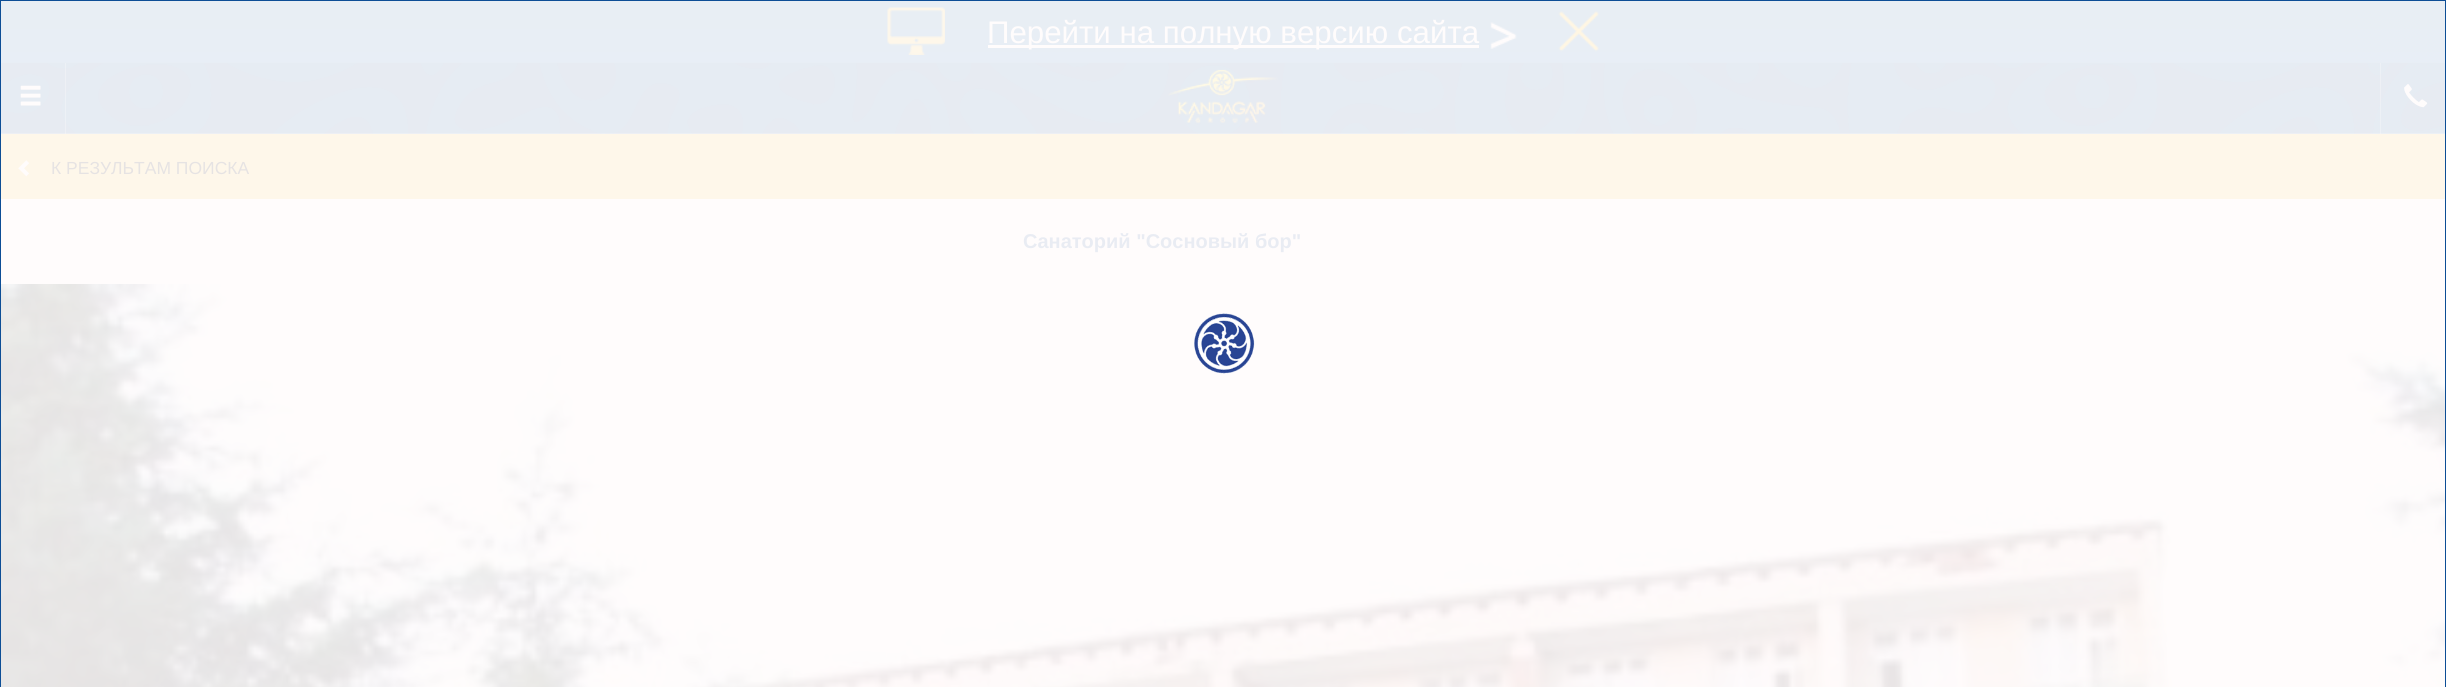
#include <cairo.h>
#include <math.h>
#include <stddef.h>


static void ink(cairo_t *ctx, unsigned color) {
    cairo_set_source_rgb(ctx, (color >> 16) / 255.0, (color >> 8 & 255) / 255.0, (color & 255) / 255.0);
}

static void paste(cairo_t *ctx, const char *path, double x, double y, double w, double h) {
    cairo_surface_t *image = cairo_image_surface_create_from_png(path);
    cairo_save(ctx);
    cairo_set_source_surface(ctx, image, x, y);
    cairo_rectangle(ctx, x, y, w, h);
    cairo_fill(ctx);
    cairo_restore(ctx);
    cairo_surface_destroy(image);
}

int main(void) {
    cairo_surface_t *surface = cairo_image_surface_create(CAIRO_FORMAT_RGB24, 2446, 687);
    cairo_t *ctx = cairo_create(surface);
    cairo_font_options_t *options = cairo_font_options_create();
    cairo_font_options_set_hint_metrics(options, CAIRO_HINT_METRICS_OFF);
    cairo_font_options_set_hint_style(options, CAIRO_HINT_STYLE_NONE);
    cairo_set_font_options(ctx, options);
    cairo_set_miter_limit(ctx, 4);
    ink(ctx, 0xFFFCFC);
    cairo_paint(ctx);
    ink(ctx, 0xE8EEF4);
    cairo_rectangle(ctx, 1, 1, 2444, 62);
    cairo_fill(ctx);
    paste(ctx, "media/2.png", 1, 29, 2444, 34);
    paste(ctx, "media/3.png", 887, 7, 58, 48);
    ink(ctx, 0xFFFCFC);
    cairo_rectangle(ctx, 988, 45, 491, 3);
    cairo_fill(ctx);
    paste(ctx, "media/4.png", 1490, 22, 27, 27);
    paste(ctx, "media/5.png", 1558, 11, 41, 41);
    paste(ctx, "media/6.png", 1, 63, 2444, 71);
    cairo_set_source_rgba(ctx, 1, 0.988, 0.988, 0.3);
    cairo_rectangle(ctx, 65, 63, 1, 71);
    cairo_fill(ctx);
    paste(ctx, "media/7.png", 20, 85, 21, 21);
    paste(ctx, "media/8.png", 1167, 69, 111, 56);
    cairo_rectangle(ctx, 2380, 63, 1, 71);
    cairo_fill(ctx);
    paste(ctx, "media/9.png", 2404, 84, 24, 24);
    ink(ctx, 0xFEF7EA);
    cairo_rectangle(ctx, 1, 134, 2444, 65);
    cairo_fill(ctx);
    paste(ctx, "media/10.png", 18, 160, 12, 17);
    paste(ctx, "media/11.png", 1, 284, 2444, 403);
    cairo_rectangle(ctx, 0.5, 0.5, 2445, 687);
    ink(ctx, 0x0D4E96);
    cairo_set_line_width(ctx, 1);
    cairo_stroke(ctx);
    paste(ctx, "media/1.png", 1194, 313, 61, 61);
    cairo_select_font_face(ctx, "Liberation Sans", CAIRO_FONT_SLANT_NORMAL, CAIRO_FONT_WEIGHT_NORMAL);
    cairo_set_font_size(ctx, 31.25);
    ink(ctx, 0xFFFCFC);
    cairo_move_to(ctx, 987, 43);
    cairo_show_text(ctx, "Перейти на полную версию сайта");
    cairo_set_font_size(ctx, 17.5);
    ink(ctx, 0xE6E3E3);
    cairo_move_to(ctx, 51, 174);
    cairo_show_text(ctx, "К РЕЗУЛЬТАМ ПОИСКА");
    cairo_select_font_face(ctx, "Liberation Sans", CAIRO_FONT_SLANT_NORMAL, CAIRO_FONT_WEIGHT_BOLD);
    cairo_set_font_size(ctx, 20);
    ink(ctx, 0xE9ECF3);
    cairo_move_to(ctx, 1023, 248);
    cairo_show_text(ctx, "Санаторий \"Сосновый бор\"");
    cairo_surface_write_to_png(surface, "image.png");
    cairo_font_options_destroy(options);
    cairo_destroy(ctx);
    cairo_surface_destroy(surface);
    return 0;
}
